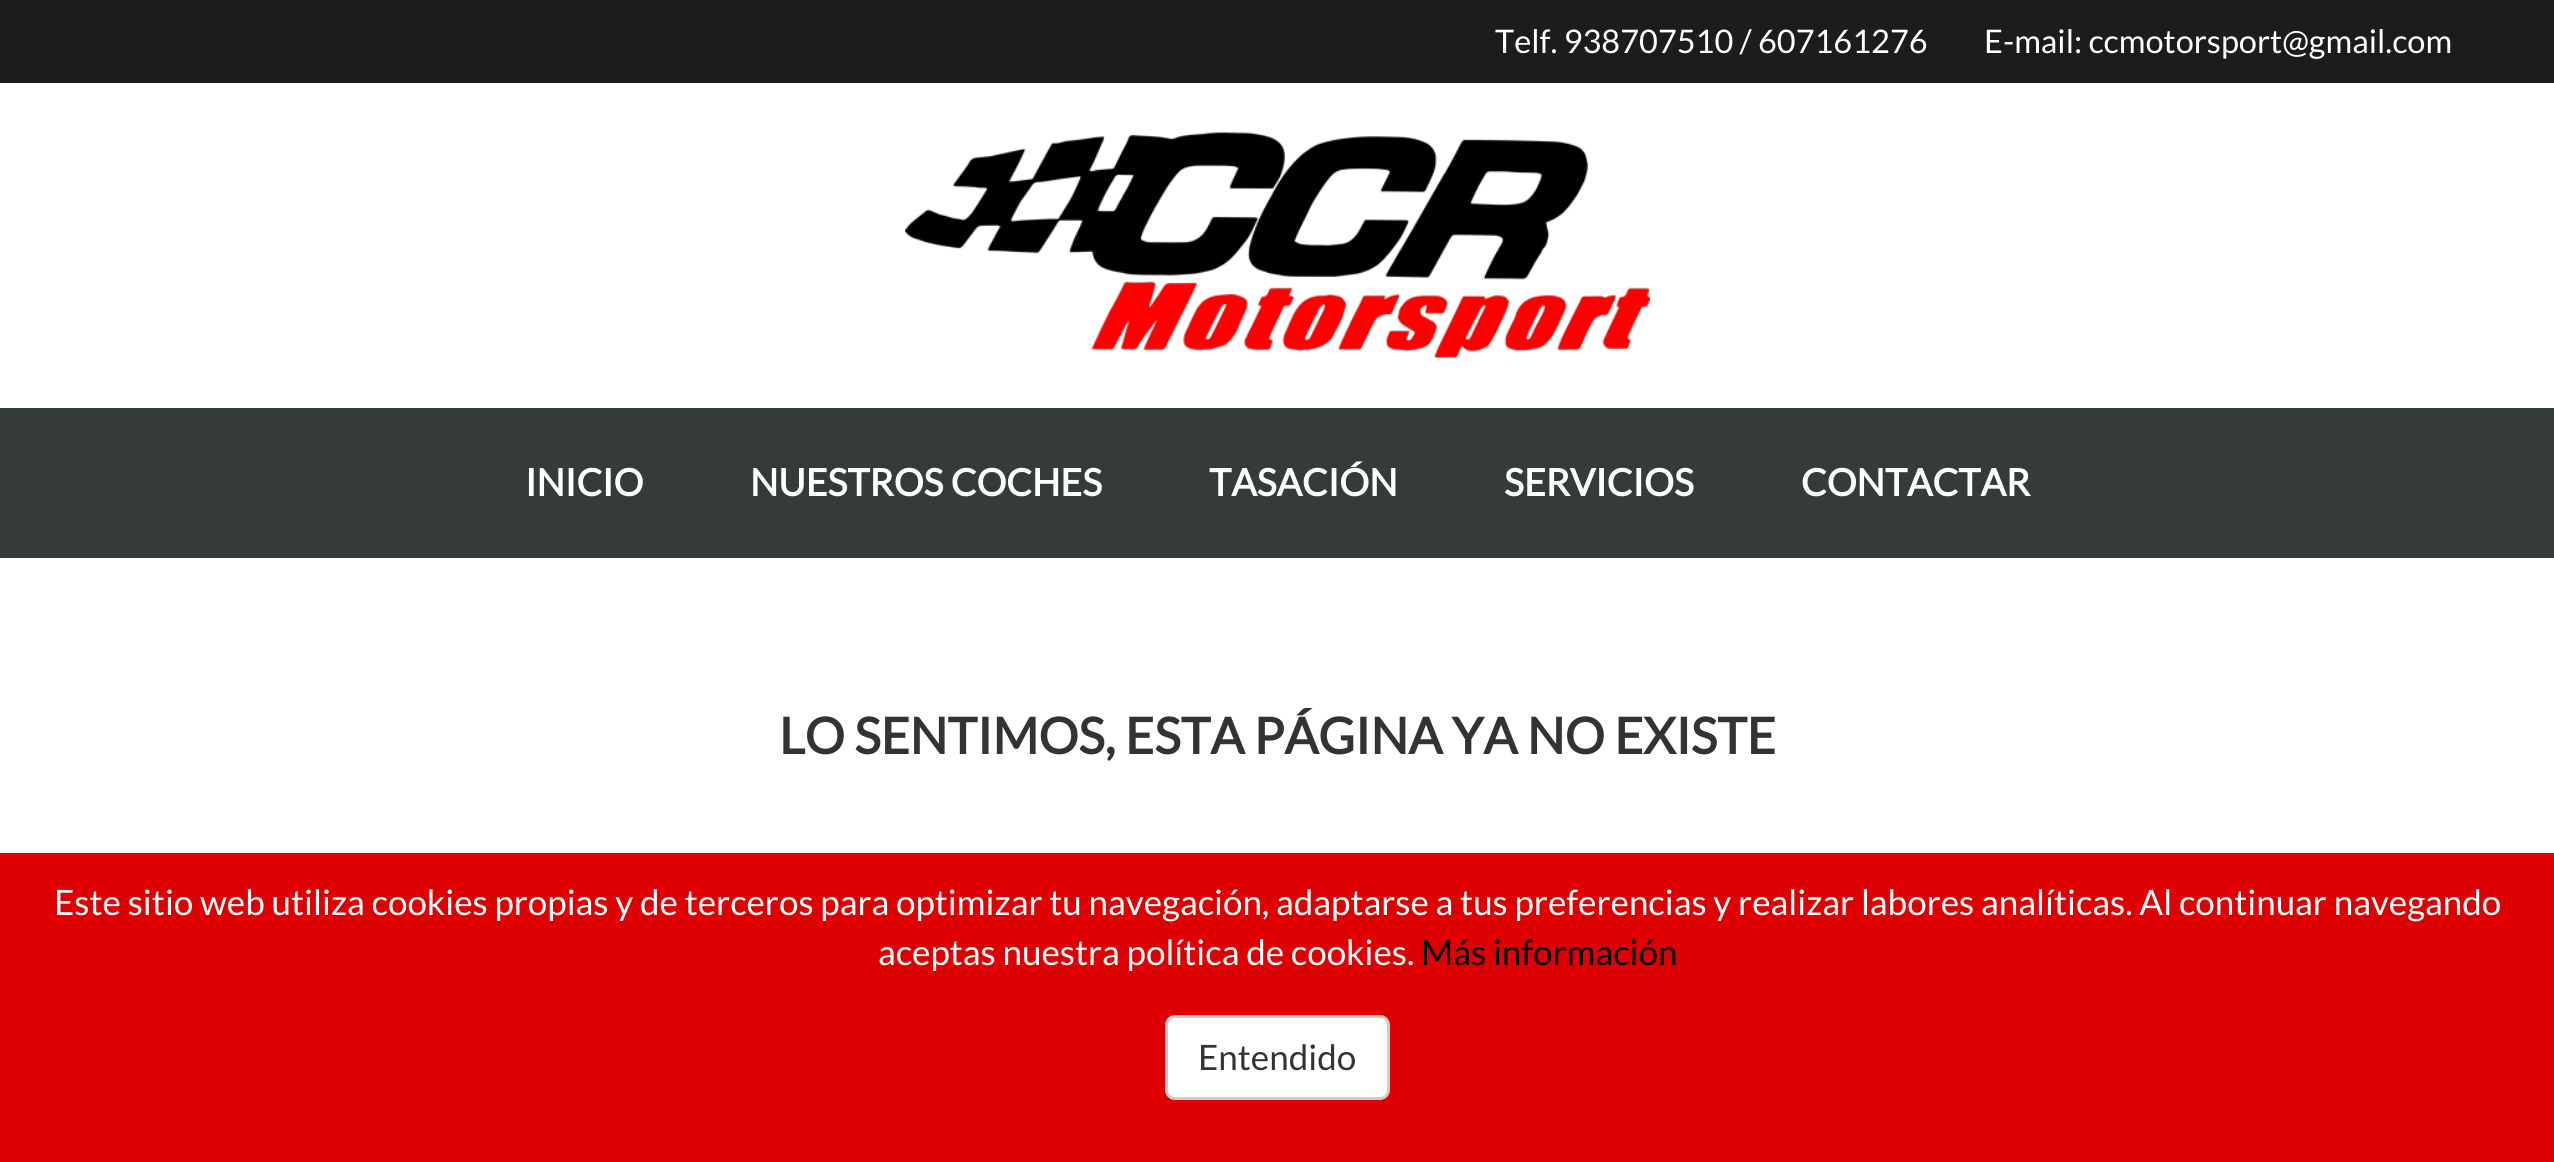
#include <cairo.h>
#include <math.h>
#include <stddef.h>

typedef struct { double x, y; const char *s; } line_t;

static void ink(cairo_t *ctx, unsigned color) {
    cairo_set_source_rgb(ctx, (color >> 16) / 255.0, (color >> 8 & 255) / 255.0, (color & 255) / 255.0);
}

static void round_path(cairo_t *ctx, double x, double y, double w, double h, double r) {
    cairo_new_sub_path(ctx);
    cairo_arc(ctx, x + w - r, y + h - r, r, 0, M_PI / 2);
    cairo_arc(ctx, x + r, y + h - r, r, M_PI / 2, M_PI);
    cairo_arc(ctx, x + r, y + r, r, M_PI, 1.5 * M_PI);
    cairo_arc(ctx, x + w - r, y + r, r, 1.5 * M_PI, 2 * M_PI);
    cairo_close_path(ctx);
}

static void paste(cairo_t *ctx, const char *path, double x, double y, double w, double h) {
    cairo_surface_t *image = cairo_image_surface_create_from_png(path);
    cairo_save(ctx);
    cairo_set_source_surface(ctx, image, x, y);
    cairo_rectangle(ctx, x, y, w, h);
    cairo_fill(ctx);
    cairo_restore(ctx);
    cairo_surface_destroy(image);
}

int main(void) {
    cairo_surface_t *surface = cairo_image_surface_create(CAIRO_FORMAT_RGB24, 2554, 1162);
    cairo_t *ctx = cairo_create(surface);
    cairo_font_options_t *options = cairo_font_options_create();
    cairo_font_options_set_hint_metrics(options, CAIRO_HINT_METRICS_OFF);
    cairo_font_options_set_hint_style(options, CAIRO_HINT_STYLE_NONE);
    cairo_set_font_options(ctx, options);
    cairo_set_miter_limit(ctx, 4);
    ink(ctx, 0xFFFFFF);
    cairo_paint(ctx);
    ink(ctx, 0x1C1C1C);
    cairo_rectangle(ctx, 0, 0, 2554, 83);
    cairo_fill(ctx);
    cairo_select_font_face(ctx, "Lato", CAIRO_FONT_SLANT_NORMAL, CAIRO_FONT_WEIGHT_NORMAL);
    cairo_set_font_size(ctx, 32.5);
    ink(ctx, 0xFFFFFF);
    cairo_move_to(ctx, 1495, 53);
    cairo_show_text(ctx, "Telf. 938707510 / 607161276");
    cairo_move_to(ctx, 1984, 53);
    cairo_show_text(ctx, "E-mail: ccmotorsport@gmail.com");
    paste(ctx, "media/1.png", 905, 132, 745, 226);
    ink(ctx, 0x353A3B);
    cairo_rectangle(ctx, 0, 408, 2554, 150);
    cairo_fill(ctx);
    cairo_select_font_face(ctx, "Lato", CAIRO_FONT_SLANT_NORMAL, CAIRO_FONT_WEIGHT_BOLD);
    cairo_set_font_size(ctx, 37.5);
    ink(ctx, 0xFFFFFF);
    {
        static const line_t items[] = {
            {525, 496, "INICIO"},
            {750, 496, "NUESTROS COCHES"},
            {1209, 496, "TASACIÓN"},
            {1504, 496, "SERVICIOS"},
            {1801, 496, "CONTACTAR"},
        };
        for (size_t i = 0; i < sizeof items / sizeof *items; i++) {
            cairo_move_to(ctx, items[i].x, items[i].y);
            cairo_show_text(ctx, items[i].s);
        }
    }
    cairo_set_font_size(ctx, 50);
    ink(ctx, 0x333333);
    cairo_move_to(ctx, 779, 754);
    cairo_show_text(ctx, "LO SENTIMOS, ESTA PÁGINA YA NO EXISTE");
    ink(ctx, 0xDE0002);
    cairo_rectangle(ctx, 0, 853, 2554, 309);
    cairo_fill(ctx);
    cairo_select_font_face(ctx, "Lato", CAIRO_FONT_SLANT_NORMAL, CAIRO_FONT_WEIGHT_NORMAL);
    cairo_set_font_size(ctx, 35);
    ink(ctx, 0xFFFFFF);
    cairo_move_to(ctx, 54, 915);
    cairo_show_text(ctx, "Este sitio web utiliza cookies propias y de terceros para optimizar tu navegación, adaptarse a tus preferencias y realizar labores analíticas. Al continuar navegando");
    cairo_move_to(ctx, 878, 965);
    cairo_show_text(ctx, "aceptas nuestra política de cookies.");
    ink(ctx, 0x000000);
    cairo_move_to(ctx, 1421, 965);
    cairo_show_text(ctx, "Más información");
    ink(ctx, 0xFFFFFF);
    round_path(ctx, 1166.5, 1016.5, 222, 82, 8.5);
    cairo_fill_preserve(ctx);
    ink(ctx, 0xCCCCCC);
    cairo_set_line_width(ctx, 3);
    cairo_stroke(ctx);
    ink(ctx, 0x333333);
    cairo_move_to(ctx, 1198, 1070);
    cairo_show_text(ctx, "Entendido");
    cairo_surface_write_to_png(surface, "image.png");
    cairo_font_options_destroy(options);
    cairo_destroy(ctx);
    cairo_surface_destroy(surface);
    return 0;
}
